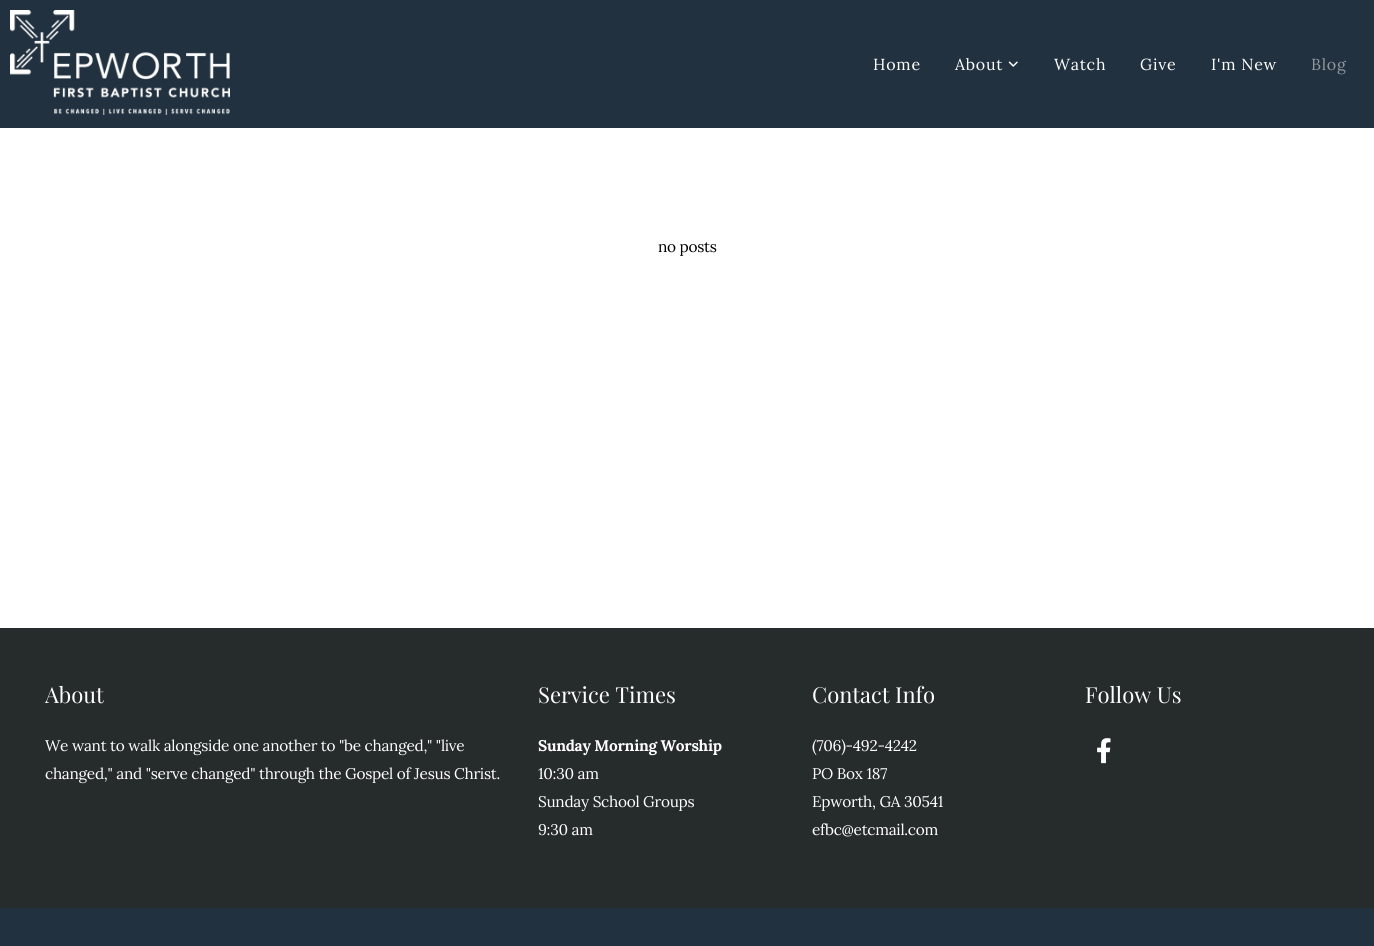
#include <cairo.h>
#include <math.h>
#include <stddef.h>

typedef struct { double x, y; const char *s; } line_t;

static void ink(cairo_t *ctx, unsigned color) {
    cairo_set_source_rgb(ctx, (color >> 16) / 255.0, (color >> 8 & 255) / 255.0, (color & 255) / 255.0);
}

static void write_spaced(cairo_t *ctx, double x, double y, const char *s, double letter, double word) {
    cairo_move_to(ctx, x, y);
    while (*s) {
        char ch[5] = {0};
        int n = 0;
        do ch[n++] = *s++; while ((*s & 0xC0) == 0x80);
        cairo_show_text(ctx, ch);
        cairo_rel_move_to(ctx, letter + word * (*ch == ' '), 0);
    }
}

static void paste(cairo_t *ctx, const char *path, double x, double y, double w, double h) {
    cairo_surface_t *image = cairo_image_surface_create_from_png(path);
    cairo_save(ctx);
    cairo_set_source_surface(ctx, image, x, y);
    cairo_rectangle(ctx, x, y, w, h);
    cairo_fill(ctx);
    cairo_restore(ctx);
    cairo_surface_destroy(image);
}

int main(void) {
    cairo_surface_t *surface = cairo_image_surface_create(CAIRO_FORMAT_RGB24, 1374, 946);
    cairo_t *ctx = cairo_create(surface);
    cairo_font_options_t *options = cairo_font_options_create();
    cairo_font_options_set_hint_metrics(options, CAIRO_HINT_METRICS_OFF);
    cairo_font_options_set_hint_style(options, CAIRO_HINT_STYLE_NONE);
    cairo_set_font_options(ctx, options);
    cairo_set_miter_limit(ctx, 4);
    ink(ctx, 0x22313F);
    cairo_paint(ctx);
    paste(ctx, "media/1.png", 10, 10, 220, 105);
    cairo_select_font_face(ctx, "Lora", CAIRO_FONT_SLANT_NORMAL, CAIRO_FONT_WEIGHT_NORMAL);
    cairo_set_font_size(ctx, 16);
    ink(ctx, 0xFFFFFF);
    write_spaced(ctx, 873, 70, "Home", 0.75, 0);
    write_spaced(ctx, 955, 70, "About", 0.75, 0);
    paste(ctx, "media/2.png", 1008, 61, 10, 6);
    {
        static const line_t items[] = {
            {1054, 70, "Watch"},
            {1140, 70, "Give"},
            {1211, 70, "I'm New"},
        };
        for (size_t i = 0; i < sizeof items / sizeof *items; i++) {
            write_spaced(ctx, items[i].x, items[i].y, items[i].s, 0.75, 0);
        }
    }
    ink(ctx, 0x91989F);
    write_spaced(ctx, 1311, 70, "Blog", 0.75, 0);
    ink(ctx, 0xFFFFFF);
    cairo_rectangle(ctx, 0, 128, 1374, 500);
    cairo_fill(ctx);
    cairo_set_font_size(ctx, 15.4);
    ink(ctx, 0x000000);
    write_spaced(ctx, 658, 252, "no posts", -0.28, 0);
    ink(ctx, 0x262B2C);
    cairo_rectangle(ctx, 0, 628, 1374, 280);
    cairo_fill(ctx);
    cairo_select_font_face(ctx, "Playfair Display", CAIRO_FONT_SLANT_NORMAL, CAIRO_FONT_WEIGHT_NORMAL);
    cairo_set_font_size(ctx, 22);
    ink(ctx, 0xFFFFFF);
    cairo_move_to(ctx, 45, 703);
    cairo_show_text(ctx, "About");
    cairo_select_font_face(ctx, "Lora", CAIRO_FONT_SLANT_NORMAL, CAIRO_FONT_WEIGHT_NORMAL);
    cairo_set_font_size(ctx, 15.4);
    write_spaced(ctx, 45, 751, "We want to walk alongside one another to \"be changed,\" \"live", -0.28, 0);
    write_spaced(ctx, 45, 779, "changed,\" and \"serve changed\" through the Gospel of Jesus Christ.", -0.28, 0);
    cairo_select_font_face(ctx, "Playfair Display", CAIRO_FONT_SLANT_NORMAL, CAIRO_FONT_WEIGHT_NORMAL);
    cairo_set_font_size(ctx, 22);
    cairo_move_to(ctx, 538, 703);
    cairo_show_text(ctx, "Service Times");
    cairo_select_font_face(ctx, "Lora", CAIRO_FONT_SLANT_NORMAL, CAIRO_FONT_WEIGHT_BOLD);
    cairo_set_font_size(ctx, 15.4);
    write_spaced(ctx, 538, 751, "Sunday Morning Worship", -0.28, 0);
    cairo_select_font_face(ctx, "Lora", CAIRO_FONT_SLANT_NORMAL, CAIRO_FONT_WEIGHT_NORMAL);
    {
        static const line_t items[] = {
            {538, 779, "10:30 am"},
            {538, 807, "Sunday School Groups"},
            {538, 835, "9:30 am"},
        };
        for (size_t i = 0; i < sizeof items / sizeof *items; i++) {
            write_spaced(ctx, items[i].x, items[i].y, items[i].s, -0.28, 0);
        }
    }
    cairo_select_font_face(ctx, "Playfair Display", CAIRO_FONT_SLANT_NORMAL, CAIRO_FONT_WEIGHT_NORMAL);
    cairo_set_font_size(ctx, 22);
    cairo_move_to(ctx, 812, 703);
    cairo_show_text(ctx, "Contact Info");
    cairo_select_font_face(ctx, "Lora", CAIRO_FONT_SLANT_NORMAL, CAIRO_FONT_WEIGHT_NORMAL);
    cairo_set_font_size(ctx, 15.4);
    {
        static const line_t items[] = {
            {812, 751, "(706)-492-4242"},
            {812, 779, "PO Box 187"},
            {812, 807, "Epworth, GA 30541"},
            {812, 835, "efbc@etcmail.com"},
        };
        for (size_t i = 0; i < sizeof items / sizeof *items; i++) {
            write_spaced(ctx, items[i].x, items[i].y, items[i].s, -0.28, 0);
        }
    }
    cairo_select_font_face(ctx, "Playfair Display", CAIRO_FONT_SLANT_NORMAL, CAIRO_FONT_WEIGHT_NORMAL);
    cairo_set_font_size(ctx, 22);
    cairo_move_to(ctx, 1085, 703);
    cairo_show_text(ctx, "Follow Us");
    paste(ctx, "media/3.png", 1097, 738, 14, 26);
    cairo_surface_write_to_png(surface, "image.png");
    cairo_font_options_destroy(options);
    cairo_destroy(ctx);
    cairo_surface_destroy(surface);
    return 0;
}
